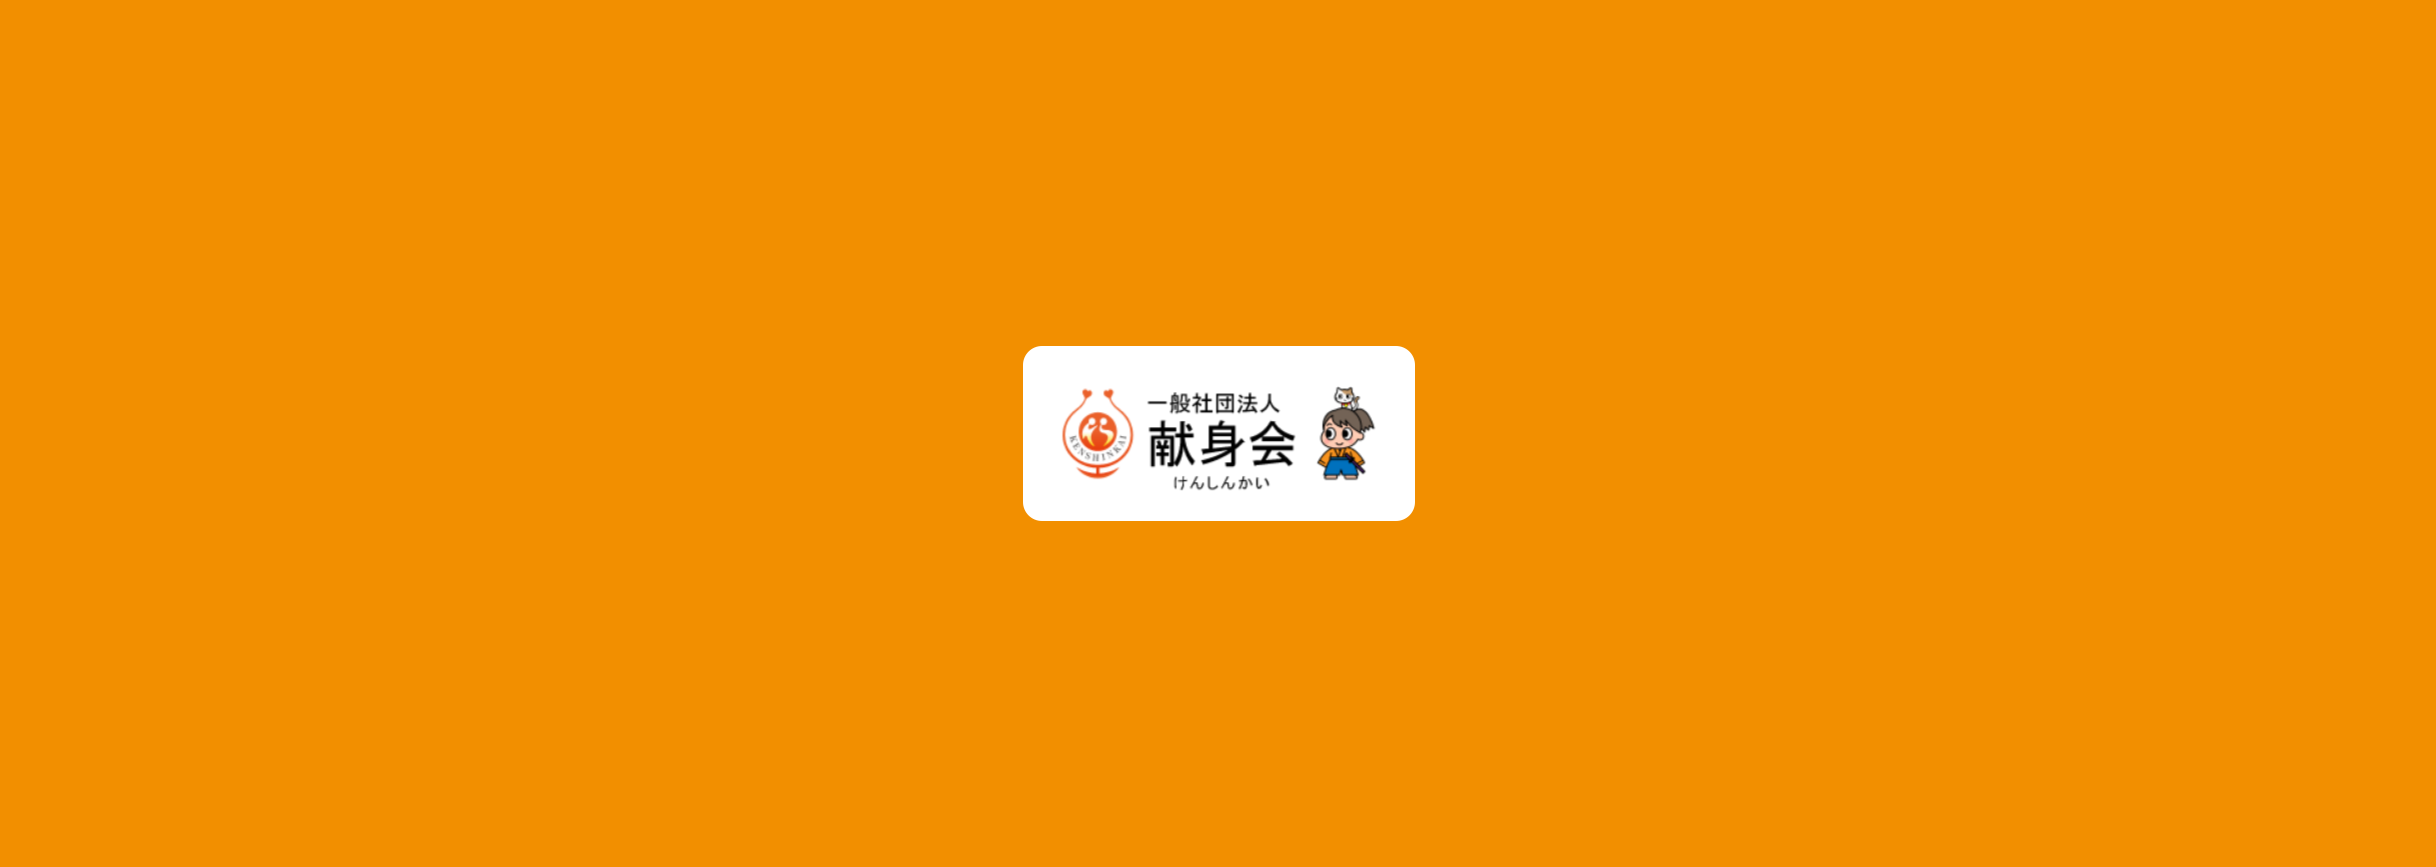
#include <cairo.h>
#include <math.h>
#include <stddef.h>


static void ink(cairo_t *ctx, unsigned color) {
    cairo_set_source_rgb(ctx, (color >> 16) / 255.0, (color >> 8 & 255) / 255.0, (color & 255) / 255.0);
}

static void round_path(cairo_t *ctx, double x, double y, double w, double h, double r) {
    cairo_new_sub_path(ctx);
    cairo_arc(ctx, x + w - r, y + h - r, r, 0, M_PI / 2);
    cairo_arc(ctx, x + r, y + h - r, r, M_PI / 2, M_PI);
    cairo_arc(ctx, x + r, y + r, r, M_PI, 1.5 * M_PI);
    cairo_arc(ctx, x + w - r, y + r, r, 1.5 * M_PI, 2 * M_PI);
    cairo_close_path(ctx);
}

static void paste(cairo_t *ctx, const char *path, double x, double y, double w, double h) {
    cairo_surface_t *image = cairo_image_surface_create_from_png(path);
    cairo_save(ctx);
    cairo_set_source_surface(ctx, image, x, y);
    cairo_rectangle(ctx, x, y, w, h);
    cairo_fill(ctx);
    cairo_restore(ctx);
    cairo_surface_destroy(image);
}

int main(void) {
    cairo_surface_t *surface = cairo_image_surface_create(CAIRO_FORMAT_RGB24, 2436, 867);
    cairo_t *ctx = cairo_create(surface);
    cairo_font_options_t *options = cairo_font_options_create();
    cairo_font_options_set_hint_metrics(options, CAIRO_HINT_METRICS_OFF);
    cairo_font_options_set_hint_style(options, CAIRO_HINT_STYLE_NONE);
    cairo_set_font_options(ctx, options);
    cairo_set_miter_limit(ctx, 4);
    ink(ctx, 0xF28F00);
    cairo_paint(ctx);
    ink(ctx, 0xFFFFFF);
    round_path(ctx, 1023, 346, 392, 175, 19);
    cairo_fill(ctx);
    paste(ctx, "media/1.png", 1061, 386, 315, 105);
    cairo_surface_write_to_png(surface, "image.png");
    cairo_font_options_destroy(options);
    cairo_destroy(ctx);
    cairo_surface_destroy(surface);
    return 0;
}
